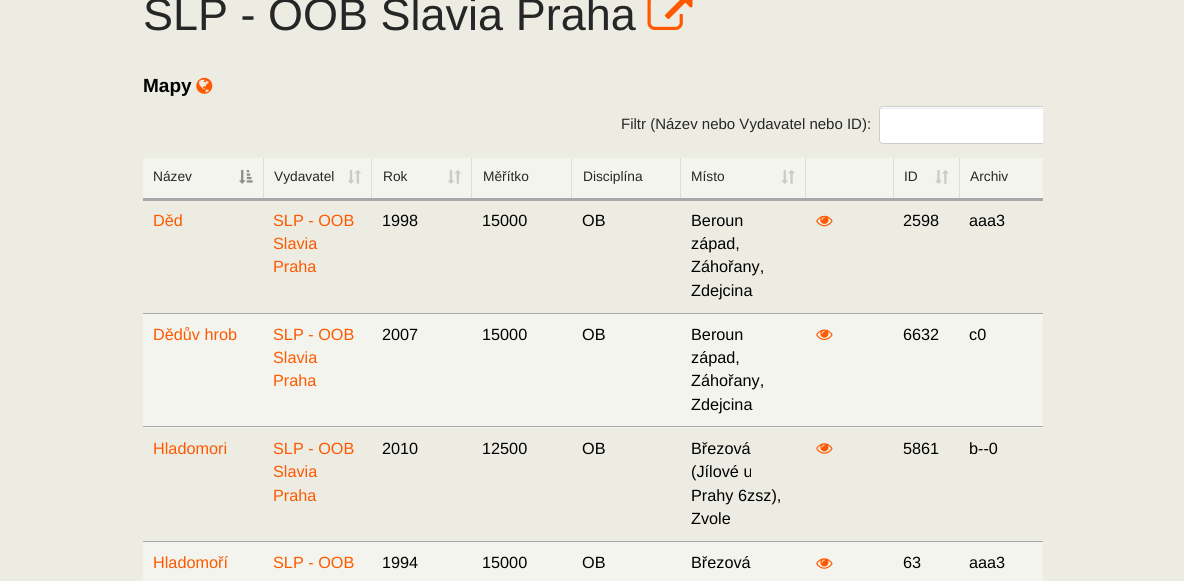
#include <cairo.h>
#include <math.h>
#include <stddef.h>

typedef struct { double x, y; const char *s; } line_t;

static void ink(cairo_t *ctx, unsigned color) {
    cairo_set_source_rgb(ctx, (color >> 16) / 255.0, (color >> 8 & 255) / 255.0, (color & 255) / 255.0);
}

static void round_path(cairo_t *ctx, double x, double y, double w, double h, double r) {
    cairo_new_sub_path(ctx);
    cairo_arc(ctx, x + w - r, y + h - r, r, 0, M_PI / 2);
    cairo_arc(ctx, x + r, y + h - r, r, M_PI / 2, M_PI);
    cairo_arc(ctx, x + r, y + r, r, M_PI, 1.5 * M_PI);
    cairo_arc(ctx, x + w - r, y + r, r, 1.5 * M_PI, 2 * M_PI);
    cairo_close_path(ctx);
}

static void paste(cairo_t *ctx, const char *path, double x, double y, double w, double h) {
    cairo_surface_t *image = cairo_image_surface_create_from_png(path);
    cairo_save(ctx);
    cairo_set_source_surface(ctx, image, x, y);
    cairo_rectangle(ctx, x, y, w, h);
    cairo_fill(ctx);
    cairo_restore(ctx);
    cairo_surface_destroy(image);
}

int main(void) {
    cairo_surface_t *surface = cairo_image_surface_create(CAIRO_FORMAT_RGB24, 1184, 581);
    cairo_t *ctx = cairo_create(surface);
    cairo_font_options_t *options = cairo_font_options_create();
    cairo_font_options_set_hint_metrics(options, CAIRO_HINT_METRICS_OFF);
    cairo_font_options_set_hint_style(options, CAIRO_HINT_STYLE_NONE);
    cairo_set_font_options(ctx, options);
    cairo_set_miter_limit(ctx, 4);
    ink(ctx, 0xEDECE3);
    cairo_paint(ctx);
    cairo_select_font_face(ctx, "Liberation Sans", CAIRO_FONT_SLANT_NORMAL, CAIRO_FONT_WEIGHT_NORMAL);
    cairo_set_font_size(ctx, 45);
    ink(ctx, 0x262626);
    cairo_move_to(ctx, 143, 30);
    cairo_show_text(ctx, "SLP - OOB Slavia Praha");
    paste(ctx, "media/1.png", 647, 0, 46, 30);
    cairo_select_font_face(ctx, "Liberation Sans", CAIRO_FONT_SLANT_NORMAL, CAIRO_FONT_WEIGHT_BOLD);
    cairo_set_font_size(ctx, 19);
    ink(ctx, 0x000000);
    cairo_move_to(ctx, 143, 92);
    cairo_show_text(ctx, "Mapy");
    paste(ctx, "media/2.png", 196, 77, 17, 17);
    cairo_select_font_face(ctx, "Liberation Sans", CAIRO_FONT_SLANT_NORMAL, CAIRO_FONT_WEIGHT_NORMAL);
    cairo_set_font_size(ctx, 15);
    ink(ctx, 0x262626);
    cairo_move_to(ctx, 621, 129);
    cairo_show_text(ctx, "Filtr (Název nebo Vydavatel nebo ID):");
    ink(ctx, 0xFFFFFF);
    cairo_new_path(ctx);
    cairo_move_to(ctx, 883, 106);
    cairo_line_to(ctx, 1043, 106);
    cairo_line_to(ctx, 1043, 144);
    cairo_line_to(ctx, 883, 144);
    cairo_curve_to(ctx, 881, 144, 879, 142, 879, 140);
    cairo_line_to(ctx, 879, 110);
    cairo_curve_to(ctx, 879, 108, 881, 106, 883, 106);
    cairo_close_path(ctx);
    cairo_fill(ctx);
    cairo_save(ctx);
    cairo_rectangle(ctx, 143, 106, 900, 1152);
    cairo_clip(ctx);
    ink(ctx, 0xECECEC);
    cairo_new_path(ctx);
    cairo_move_to(ctx, 882, 109);
    cairo_line_to(ctx, 1096, 109);
    cairo_curve_to(ctx, 1098, 109, 1099, 110, 1099, 111);
    cairo_curve_to(ctx, 1099, 109, 1098, 108, 1096, 108);
    cairo_line_to(ctx, 882, 108);
    cairo_curve_to(ctx, 881, 108, 880, 109, 880, 111);
    cairo_curve_to(ctx, 880, 110, 881, 109, 882, 109);
    cairo_close_path(ctx);
    cairo_fill(ctx);
    round_path(ctx, 879.5, 106.5, 220, 37, 3.5);
    ink(ctx, 0xCCCCCC);
    cairo_set_line_width(ctx, 1);
    cairo_stroke(ctx);
    cairo_restore(ctx);
    ink(ctx, 0xF4F4EE);
    cairo_rectangle(ctx, 143, 158, 900, 423);
    cairo_fill(ctx);
    cairo_set_font_size(ctx, 13.75);
    ink(ctx, 0x262626);
    cairo_move_to(ctx, 153, 181);
    cairo_show_text(ctx, "Název");
    paste(ctx, "media/3.png", 239, 170, 14, 14);
    ink(ctx, 0xDDDDDD);
    cairo_rectangle(ctx, 263, 158, 1, 41);
    cairo_fill(ctx);
    ink(ctx, 0x262626);
    cairo_move_to(ctx, 274, 181);
    cairo_show_text(ctx, "Vydavatel");
    paste(ctx, "media/4.png", 348, 170, 13, 14);
    ink(ctx, 0xDDDDDD);
    cairo_rectangle(ctx, 371, 158, 1, 41);
    cairo_fill(ctx);
    ink(ctx, 0x262626);
    cairo_move_to(ctx, 383, 181);
    cairo_show_text(ctx, "Rok");
    paste(ctx, "media/4.png", 448, 170, 13, 14);
    ink(ctx, 0xDDDDDD);
    cairo_rectangle(ctx, 471, 158, 1, 41);
    cairo_fill(ctx);
    ink(ctx, 0x262626);
    cairo_move_to(ctx, 483, 181);
    cairo_show_text(ctx, "Měřítko");
    ink(ctx, 0xDDDDDD);
    cairo_rectangle(ctx, 571, 158, 1, 41);
    cairo_fill(ctx);
    ink(ctx, 0x262626);
    cairo_move_to(ctx, 583, 181);
    cairo_show_text(ctx, "Disciplína");
    ink(ctx, 0xDDDDDD);
    cairo_rectangle(ctx, 680, 158, 1, 41);
    cairo_fill(ctx);
    ink(ctx, 0x262626);
    cairo_move_to(ctx, 691, 181);
    cairo_show_text(ctx, "Místo");
    paste(ctx, "media/5.png", 781, 170, 14, 14);
    ink(ctx, 0xDDDDDD);
    cairo_rectangle(ctx, 805, 158, 1, 41);
    cairo_fill(ctx);
    cairo_rectangle(ctx, 893, 158, 1, 41);
    cairo_fill(ctx);
    ink(ctx, 0x262626);
    cairo_move_to(ctx, 904, 181);
    cairo_show_text(ctx, "ID");
    paste(ctx, "media/6.png", 935, 170, 14, 14);
    ink(ctx, 0xDDDDDD);
    cairo_rectangle(ctx, 959, 158, 1, 41);
    cairo_fill(ctx);
    ink(ctx, 0xA8A8A8);
    cairo_rectangle(ctx, 143, 198, 900, 3);
    cairo_fill(ctx);
    ink(ctx, 0x262626);
    cairo_move_to(ctx, 970, 181);
    cairo_show_text(ctx, "Archiv");
    ink(ctx, 0xEDECE3);
    cairo_rectangle(ctx, 143, 201, 900, 112);
    cairo_fill(ctx);
    cairo_set_font_size(ctx, 16.25);
    ink(ctx, 0xFE5900);
    {
        static const line_t items[] = {
            {153, 226, "Děd"},
            {273, 226, "SLP - OOB"},
            {273, 249, "Slavia"},
            {273, 272, "Praha"},
        };
        for (size_t i = 0; i < sizeof items / sizeof *items; i++) {
            cairo_move_to(ctx, items[i].x, items[i].y);
            cairo_show_text(ctx, items[i].s);
        }
    }
    ink(ctx, 0x000000);
    {
        static const line_t items[] = {
            {382, 226, "1998"},
            {482, 226, "15000"},
            {582, 226, "OB"},
            {691, 226, "Beroun"},
            {691, 249, "západ,"},
            {691, 272, "Záhořany,"},
            {691, 296, "Zdejcina"},
        };
        for (size_t i = 0; i < sizeof items / sizeof *items; i++) {
            cairo_move_to(ctx, items[i].x, items[i].y);
            cairo_show_text(ctx, items[i].s);
        }
    }
    paste(ctx, "media/7.png", 816, 215, 17, 12);
    cairo_move_to(ctx, 903, 226);
    cairo_show_text(ctx, "2598");
    cairo_move_to(ctx, 969, 226);
    cairo_show_text(ctx, "aaa3");
    ink(ctx, 0xFE5900);
    {
        static const line_t items[] = {
            {153, 340, "Dědův hrob"},
            {273, 340, "SLP - OOB"},
            {273, 363, "Slavia"},
            {273, 386, "Praha"},
        };
        for (size_t i = 0; i < sizeof items / sizeof *items; i++) {
            cairo_move_to(ctx, items[i].x, items[i].y);
            cairo_show_text(ctx, items[i].s);
        }
    }
    ink(ctx, 0x000000);
    {
        static const line_t items[] = {
            {382, 340, "2007"},
            {482, 340, "15000"},
            {582, 340, "OB"},
            {691, 340, "Beroun"},
            {691, 363, "západ,"},
            {691, 386, "Záhořany,"},
            {691, 410, "Zdejcina"},
        };
        for (size_t i = 0; i < sizeof items / sizeof *items; i++) {
            cairo_move_to(ctx, items[i].x, items[i].y);
            cairo_show_text(ctx, items[i].s);
        }
    }
    paste(ctx, "media/8.png", 816, 329, 17, 11);
    cairo_move_to(ctx, 903, 340);
    cairo_show_text(ctx, "6632");
    ink(ctx, 0xA8A8A8);
    cairo_rectangle(ctx, 143, 313, 900, 1);
    cairo_fill(ctx);
    ink(ctx, 0x000000);
    cairo_move_to(ctx, 969, 340);
    cairo_show_text(ctx, "c0");
    ink(ctx, 0xEDECE3);
    cairo_rectangle(ctx, 143, 428, 900, 113);
    cairo_fill(ctx);
    ink(ctx, 0xFE5900);
    {
        static const line_t items[] = {
            {153, 454, "Hladomori"},
            {273, 454, "SLP - OOB"},
            {273, 477, "Slavia"},
            {273, 501, "Praha"},
        };
        for (size_t i = 0; i < sizeof items / sizeof *items; i++) {
            cairo_move_to(ctx, items[i].x, items[i].y);
            cairo_show_text(ctx, items[i].s);
        }
    }
    ink(ctx, 0x000000);
    {
        static const line_t items[] = {
            {382, 454, "2010"},
            {482, 454, "12500"},
            {582, 454, "OB"},
            {691, 454, "Březová"},
            {691, 477, "(Jílové u"},
            {691, 501, "Prahy 6zsz),"},
            {691, 524, "Zvole"},
        };
        for (size_t i = 0; i < sizeof items / sizeof *items; i++) {
            cairo_move_to(ctx, items[i].x, items[i].y);
            cairo_show_text(ctx, items[i].s);
        }
    }
    paste(ctx, "media/9.png", 816, 443, 17, 11);
    cairo_move_to(ctx, 903, 454);
    cairo_show_text(ctx, "5861");
    ink(ctx, 0xA8A8A8);
    cairo_rectangle(ctx, 143, 426, 900, 1);
    cairo_fill(ctx);
    ink(ctx, 0x000000);
    cairo_move_to(ctx, 969, 454);
    cairo_show_text(ctx, "b--0");
    ink(ctx, 0xFE5900);
    cairo_move_to(ctx, 153, 568);
    cairo_show_text(ctx, "Hladomoří");
    cairo_move_to(ctx, 273, 568);
    cairo_show_text(ctx, "SLP - OOB");
    ink(ctx, 0x000000);
    {
        static const line_t items[] = {
            {382, 568, "1994"},
            {482, 568, "15000"},
            {582, 568, "OB"},
            {691, 568, "Březová"},
        };
        for (size_t i = 0; i < sizeof items / sizeof *items; i++) {
            cairo_move_to(ctx, items[i].x, items[i].y);
            cairo_show_text(ctx, items[i].s);
        }
    }
    paste(ctx, "media/10.png", 816, 558, 17, 11);
    cairo_move_to(ctx, 903, 568);
    cairo_show_text(ctx, "63");
    ink(ctx, 0xA8A8A8);
    cairo_rectangle(ctx, 143, 541, 900, 1);
    cairo_fill(ctx);
    ink(ctx, 0x000000);
    cairo_move_to(ctx, 969, 568);
    cairo_show_text(ctx, "aaa3");
    cairo_surface_write_to_png(surface, "image.png");
    cairo_font_options_destroy(options);
    cairo_destroy(ctx);
    cairo_surface_destroy(surface);
    return 0;
}
